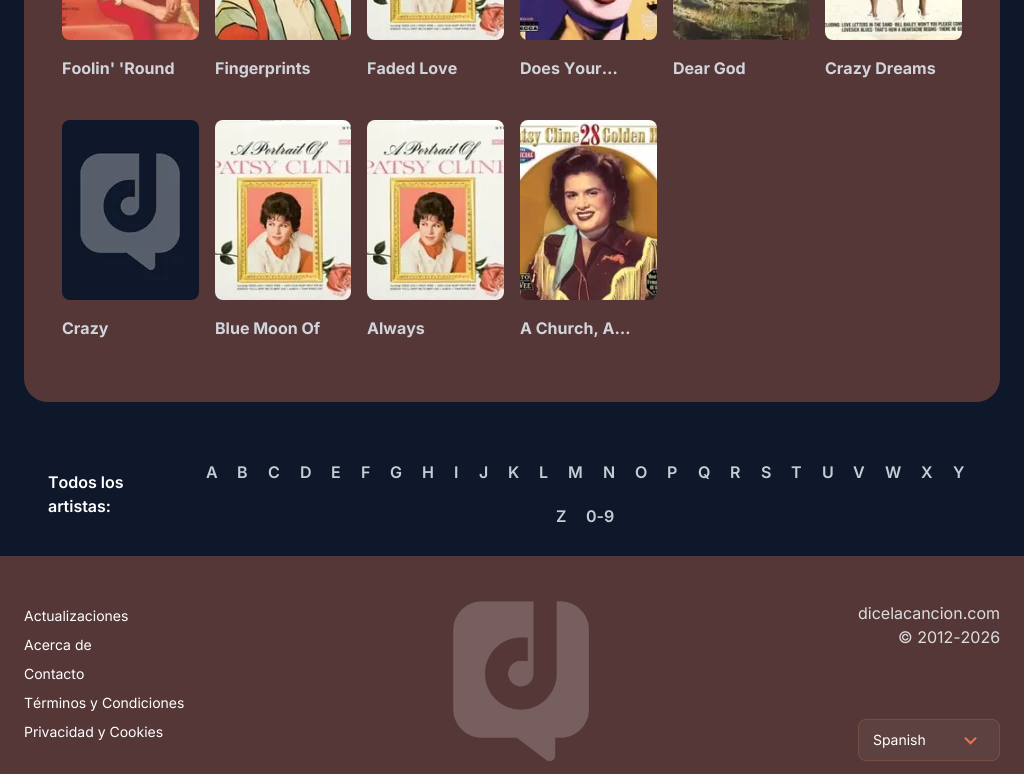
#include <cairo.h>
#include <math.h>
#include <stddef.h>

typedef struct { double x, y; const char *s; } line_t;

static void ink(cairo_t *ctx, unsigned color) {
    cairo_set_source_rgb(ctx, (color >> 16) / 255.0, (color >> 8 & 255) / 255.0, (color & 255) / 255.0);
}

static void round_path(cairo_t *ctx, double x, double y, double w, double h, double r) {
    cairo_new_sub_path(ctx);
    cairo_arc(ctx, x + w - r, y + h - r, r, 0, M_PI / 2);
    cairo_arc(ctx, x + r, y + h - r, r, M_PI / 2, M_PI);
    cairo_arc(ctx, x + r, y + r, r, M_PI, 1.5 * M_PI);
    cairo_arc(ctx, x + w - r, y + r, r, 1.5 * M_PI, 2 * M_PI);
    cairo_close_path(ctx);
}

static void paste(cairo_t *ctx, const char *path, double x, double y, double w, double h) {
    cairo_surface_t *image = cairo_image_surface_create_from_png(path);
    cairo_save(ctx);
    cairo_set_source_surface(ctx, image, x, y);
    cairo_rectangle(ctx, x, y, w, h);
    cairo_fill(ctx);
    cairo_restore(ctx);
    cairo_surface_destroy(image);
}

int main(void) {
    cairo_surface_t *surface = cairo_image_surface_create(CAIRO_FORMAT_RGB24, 1024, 774);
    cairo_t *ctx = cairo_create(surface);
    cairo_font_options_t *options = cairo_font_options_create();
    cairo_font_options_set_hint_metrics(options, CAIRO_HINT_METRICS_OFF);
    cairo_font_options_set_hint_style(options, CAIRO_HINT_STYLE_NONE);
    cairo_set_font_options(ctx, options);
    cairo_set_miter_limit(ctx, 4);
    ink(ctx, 0x0F172A);
    cairo_paint(ctx);
    ink(ctx, 0x553737);
    round_path(ctx, 24, -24, 976, 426, 24);
    cairo_fill(ctx);
    paste(ctx, "media/1.png", 62, 0, 137, 40);
    cairo_select_font_face(ctx, "Inter", CAIRO_FONT_SLANT_NORMAL, CAIRO_FONT_WEIGHT_BOLD);
    cairo_set_font_size(ctx, 16);
    ink(ctx, 0xD1D5DB);
    cairo_move_to(ctx, 62, 74);
    cairo_show_text(ctx, "Foolin' 'Round");
    paste(ctx, "media/2.png", 215, 0, 136, 40);
    cairo_move_to(ctx, 215, 74);
    cairo_show_text(ctx, "Fingerprints");
    paste(ctx, "media/3.png", 367, 0, 137, 40);
    cairo_move_to(ctx, 367, 74);
    cairo_show_text(ctx, "Faded Love");
    paste(ctx, "media/4.png", 520, 0, 137, 40);
    cairo_move_to(ctx, 520, 74);
    cairo_show_text(ctx, "Does Your…");
    paste(ctx, "media/5.png", 673, 0, 136, 40);
    cairo_move_to(ctx, 673, 74);
    cairo_show_text(ctx, "Dear God");
    paste(ctx, "media/6.png", 825, 0, 137, 40);
    cairo_move_to(ctx, 825, 74);
    cairo_show_text(ctx, "Crazy Dreams");
    paste(ctx, "media/7.png", 62, 120, 137, 180);
    cairo_move_to(ctx, 62, 334);
    cairo_show_text(ctx, "Crazy");
    paste(ctx, "media/8.png", 215, 120, 136, 180);
    cairo_move_to(ctx, 215, 334);
    cairo_show_text(ctx, "Blue Moon Of");
    paste(ctx, "media/9.png", 367, 120, 137, 180);
    cairo_move_to(ctx, 367, 334);
    cairo_show_text(ctx, "Always");
    paste(ctx, "media/10.png", 520, 120, 137, 180);
    cairo_move_to(ctx, 520, 334);
    cairo_show_text(ctx, "A Church, A…");
    cairo_select_font_face(ctx, "Inter SemiBold", CAIRO_FONT_SLANT_NORMAL, CAIRO_FONT_WEIGHT_NORMAL);
    ink(ctx, 0xFFFFFF);
    cairo_move_to(ctx, 48, 488);
    cairo_show_text(ctx, "Todos los");
    cairo_move_to(ctx, 48, 512);
    cairo_show_text(ctx, "artistas:");
    ink(ctx, 0xC4CDD5);
    {
        static const line_t items[] = {
            {206, 478, "A"},
            {237, 478, "B"},
            {268, 478, "C"},
            {300, 478, "D"},
            {331, 478, "E"},
            {361, 478, "F"},
            {390, 478, "G"},
            {422, 478, "H"},
            {454, 478, "I"},
            {479, 478, "J"},
            {508, 478, "K"},
            {539, 478, "L"},
            {568, 478, "M"},
            {603, 478, "N"},
            {635, 478, "O"},
            {667, 478, "P"},
            {698, 478, "Q"},
            {730, 478, "R"},
            {761, 478, "S"},
            {791, 478, "T"},
            {822, 478, "U"},
            {853, 478, "V"},
            {885, 478, "W"},
            {921, 478, "X"},
            {953, 478, "Y"},
            {556, 522, "Z"},
            {586, 522, "0-9"},
        };
        for (size_t i = 0; i < sizeof items / sizeof *items; i++) {
            cairo_move_to(ctx, items[i].x, items[i].y);
            cairo_show_text(ctx, items[i].s);
        }
    }
    ink(ctx, 0x553737);
    cairo_rectangle(ctx, 0, 556, 1024, 218);
    cairo_fill(ctx);
    cairo_select_font_face(ctx, "Inter", CAIRO_FONT_SLANT_NORMAL, CAIRO_FONT_WEIGHT_NORMAL);
    cairo_set_font_size(ctx, 14);
    ink(ctx, 0xFFFFFF);
    {
        static const line_t items[] = {
            {24, 621, "Actualizaciones"},
            {24, 650, "Acerca de"},
            {24, 679, "Contacto"},
            {24, 708, "Términos y Condiciones"},
            {24, 737, "Privacidad y Cookies"},
        };
        for (size_t i = 0; i < sizeof items / sizeof *items; i++) {
            cairo_move_to(ctx, items[i].x, items[i].y);
            cairo_show_text(ctx, items[i].s);
        }
    }
    paste(ctx, "media/11.png", 453, 601, 136, 160);
    cairo_set_font_size(ctx, 16);
    ink(ctx, 0xDDDDDD);
    cairo_move_to(ctx, 858, 619);
    cairo_show_text(ctx, "dicelacancion.com");
    cairo_move_to(ctx, 898, 643);
    cairo_show_text(ctx, "© 2012-2026");
    ink(ctx, 0x5D4141);
    round_path(ctx, 858.5, 719.5, 141, 41, 7.5);
    cairo_fill_preserve(ctx);
    ink(ctx, 0x784C44);
    cairo_set_line_width(ctx, 1);
    cairo_stroke(ctx);
    cairo_set_font_size(ctx, 14);
    ink(ctx, 0xFFFFFF);
    cairo_move_to(ctx, 873, 745);
    cairo_show_text(ctx, "Spanish");
    paste(ctx, "media/12.png", 964, 737, 13, 8);
    cairo_surface_write_to_png(surface, "image.png");
    cairo_font_options_destroy(options);
    cairo_destroy(ctx);
    cairo_surface_destroy(surface);
    return 0;
}
